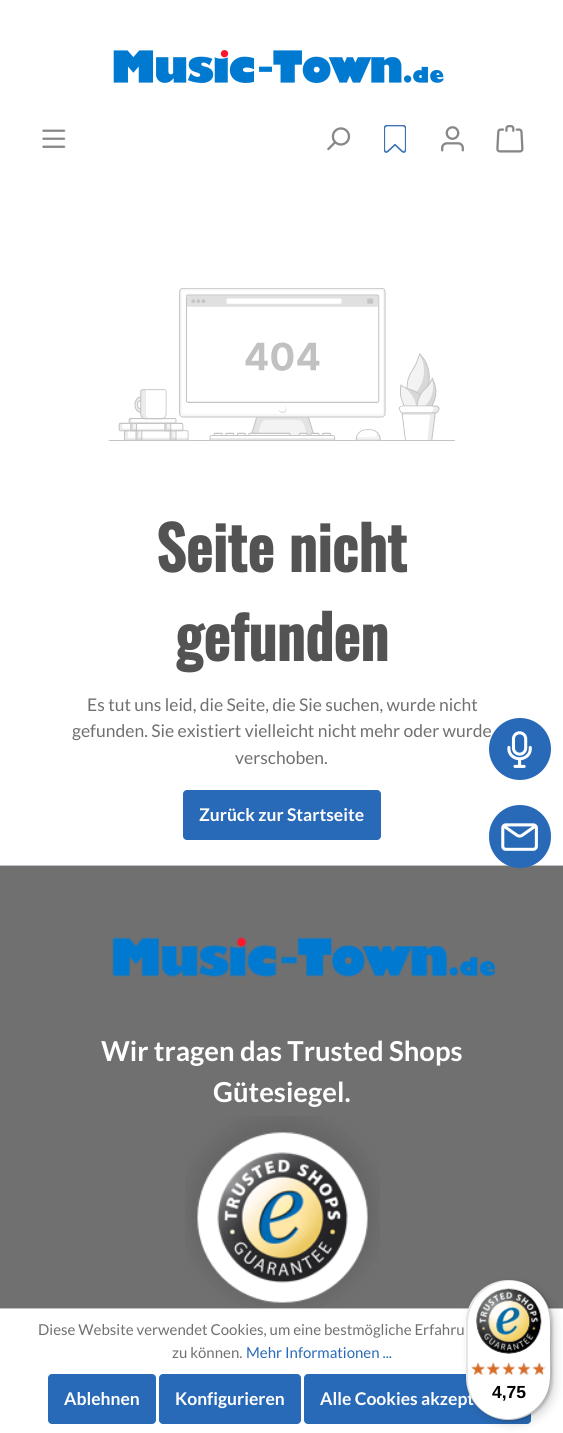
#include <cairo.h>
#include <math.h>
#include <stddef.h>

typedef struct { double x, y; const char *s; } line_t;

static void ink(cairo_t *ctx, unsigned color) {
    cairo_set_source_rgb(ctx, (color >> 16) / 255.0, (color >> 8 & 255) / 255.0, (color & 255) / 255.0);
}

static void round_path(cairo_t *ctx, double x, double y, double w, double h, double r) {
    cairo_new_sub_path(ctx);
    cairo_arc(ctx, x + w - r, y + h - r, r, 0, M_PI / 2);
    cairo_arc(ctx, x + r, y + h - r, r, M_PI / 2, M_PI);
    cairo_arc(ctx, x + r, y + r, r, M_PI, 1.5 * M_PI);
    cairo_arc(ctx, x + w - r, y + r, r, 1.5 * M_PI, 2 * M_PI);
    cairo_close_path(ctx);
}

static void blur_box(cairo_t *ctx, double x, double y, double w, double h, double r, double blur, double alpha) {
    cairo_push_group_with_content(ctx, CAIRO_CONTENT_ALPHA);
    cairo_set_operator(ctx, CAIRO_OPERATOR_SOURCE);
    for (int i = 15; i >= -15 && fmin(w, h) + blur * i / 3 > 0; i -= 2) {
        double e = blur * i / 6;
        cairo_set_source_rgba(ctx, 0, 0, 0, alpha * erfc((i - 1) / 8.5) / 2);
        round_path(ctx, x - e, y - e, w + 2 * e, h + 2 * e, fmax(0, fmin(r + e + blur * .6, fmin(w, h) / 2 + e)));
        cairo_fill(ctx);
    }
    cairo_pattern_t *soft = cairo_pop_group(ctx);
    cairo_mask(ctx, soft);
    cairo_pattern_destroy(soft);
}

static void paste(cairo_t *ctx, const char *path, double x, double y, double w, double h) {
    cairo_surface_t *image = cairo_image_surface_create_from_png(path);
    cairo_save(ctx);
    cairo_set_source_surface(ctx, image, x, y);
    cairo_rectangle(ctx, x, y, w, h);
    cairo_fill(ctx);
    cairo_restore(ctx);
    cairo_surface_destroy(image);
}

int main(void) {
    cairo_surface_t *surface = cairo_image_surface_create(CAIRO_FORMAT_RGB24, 563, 1433);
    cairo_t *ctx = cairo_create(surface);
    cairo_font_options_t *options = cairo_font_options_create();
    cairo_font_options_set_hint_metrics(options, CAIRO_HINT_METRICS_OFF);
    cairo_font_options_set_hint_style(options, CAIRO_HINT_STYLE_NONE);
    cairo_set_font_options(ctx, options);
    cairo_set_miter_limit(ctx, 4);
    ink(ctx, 0xFFFFFF);
    cairo_paint(ctx);
    paste(ctx, "media/1.png", 113, 50, 331, 33);
    paste(ctx, "media/2.png", 42, 129, 24, 19);
    paste(ctx, "media/3.png", 327, 127, 24, 24);
    paste(ctx, "media/4.png", 384, 125, 22, 28);
    paste(ctx, "media/5.png", 441, 126, 23, 26);
    paste(ctx, "media/6.png", 496, 125, 28, 28);
    paste(ctx, "media/7.png", 108, 288, 348, 153);
    cairo_select_font_face(ctx, "Oswald", CAIRO_FONT_SLANT_NORMAL, CAIRO_FONT_WEIGHT_BOLD);
    cairo_set_font_size(ctx, 60);
    ink(ctx, 0x535353);
    cairo_move_to(ctx, 156, 572);
    cairo_show_text(ctx, "Seite nicht");
    cairo_move_to(ctx, 175, 661);
    cairo_show_text(ctx, "gefunden");
    cairo_select_font_face(ctx, "Lato", CAIRO_FONT_SLANT_NORMAL, CAIRO_FONT_WEIGHT_NORMAL);
    cairo_set_font_size(ctx, 17.5);
    ink(ctx, 0x707070);
    {
        static const line_t items[] = {
            {87, 711, "Es tut uns leid, die Seite, die Sie suchen, wurde nicht"},
            {72, 737, "gefunden. Sie existiert vielleicht nicht mehr oder wurde"},
            {235, 764, "verschoben."},
        };
        for (size_t i = 0; i < sizeof items / sizeof *items; i++) {
            cairo_move_to(ctx, items[i].x, items[i].y);
            cairo_show_text(ctx, items[i].s);
        }
    }
    ink(ctx, 0x286AB7);
    round_path(ctx, 183.5, 790.5, 197, 49, 3.5);
    cairo_fill_preserve(ctx);
    cairo_set_line_width(ctx, 1);
    cairo_stroke(ctx);
    cairo_select_font_face(ctx, "Lato", CAIRO_FONT_SLANT_NORMAL, CAIRO_FONT_WEIGHT_BOLD);
    ink(ctx, 0xFFFFFF);
    cairo_move_to(ctx, 199, 821);
    cairo_show_text(ctx, "Zurück zur Startseite");
    ink(ctx, 0x286AB7);
    cairo_new_path(ctx);
    cairo_arc(ctx, 520, 749, 31, 0, 2 * M_PI);
    cairo_fill(ctx);
    paste(ctx, "media/8.png", 507, 731, 25, 37);
    ink(ctx, 0xBCC1C7);
    cairo_rectangle(ctx, 0, 865, 563, 1);
    cairo_fill(ctx);
    ink(ctx, 0x707070);
    cairo_rectangle(ctx, 0, 866, 563, 442);
    cairo_fill(ctx);
    ink(ctx, 0x286AB7);
    round_path(ctx, 489, 805, 62, 63, 31);
    cairo_fill(ctx);
    paste(ctx, "media/9.png", 501, 823, 37, 28);
    paste(ctx, "media/10.png", 112, 937, 383, 40);
    cairo_set_font_size(ctx, 27.5);
    ink(ctx, 0xFFFFFF);
    cairo_move_to(ctx, 101, 1061);
    cairo_show_text(ctx, "Wir tragen das Trusted Shops");
    cairo_move_to(ctx, 213, 1102);
    cairo_show_text(ctx, "Gütesiegel.");
    paste(ctx, "media/11.png", 185, 1116, 195, 192);
    ink(ctx, 0xBCC1C7);
    cairo_rectangle(ctx, 0, 1308, 563, 1);
    cairo_fill(ctx);
    cairo_select_font_face(ctx, "Lato", CAIRO_FONT_SLANT_NORMAL, CAIRO_FONT_WEIGHT_NORMAL);
    cairo_set_font_size(ctx, 15);
    ink(ctx, 0x707070);
    cairo_move_to(ctx, 38, 1335);
    cairo_show_text(ctx, "Diese Website verwendet Cookies, um eine bestmögliche Erfahru");
    cairo_move_to(ctx, 172, 1358);
    cairo_show_text(ctx, "zu können.");
    ink(ctx, 0x286AB7);
    cairo_move_to(ctx, 246, 1358);
    cairo_show_text(ctx, "Mehr Informationen ...");
    round_path(ctx, 48.5, 1374.5, 107, 49, 3.5);
    cairo_fill_preserve(ctx);
    cairo_stroke(ctx);
    cairo_select_font_face(ctx, "Lato", CAIRO_FONT_SLANT_NORMAL, CAIRO_FONT_WEIGHT_BOLD);
    cairo_set_font_size(ctx, 17.5);
    ink(ctx, 0xFFFFFF);
    cairo_move_to(ctx, 64, 1405);
    cairo_show_text(ctx, "Ablehnen");
    ink(ctx, 0x286AB7);
    round_path(ctx, 159.5, 1374.5, 141, 49, 3.5);
    cairo_fill_preserve(ctx);
    cairo_stroke(ctx);
    ink(ctx, 0xFFFFFF);
    cairo_move_to(ctx, 175, 1405);
    cairo_show_text(ctx, "Konfigurieren");
    ink(ctx, 0x286AB7);
    round_path(ctx, 304.5, 1374.5, 226, 49, 3.5);
    cairo_fill_preserve(ctx);
    cairo_stroke(ctx);
    ink(ctx, 0xFFFFFF);
    cairo_move_to(ctx, 320, 1405);
    cairo_show_text(ctx, "Alle Cookies akzept");
    ink(ctx, 0x000000);
    blur_box(ctx, 470, 1284, 85, 140, 42.5, 5, 0.15);
    blur_box(ctx, 468, 1281, 85, 140, 42.5, 1, 0.15);
    ink(ctx, 0xFFFFFF);
    round_path(ctx, 466, 1280, 85, 140, 42.5);
    cairo_fill(ctx);
    cairo_set_source_rgba(ctx, 0, 0, 0, 0.1);
    cairo_new_path(ctx);
    cairo_move_to(ctx, 510, 1281);
    cairo_curve_to(ctx, 521, 1281, 531, 1285, 539, 1292);
    cairo_curve_to(ctx, 531, 1285, 520, 1280, 508, 1280);
    cairo_curve_to(ctx, 485, 1280, 466, 1299, 466, 1322);
    cairo_line_to(ctx, 466, 1378);
    cairo_curve_to(ctx, 466, 1394, 475, 1408, 489, 1415);
    cairo_curve_to(ctx, 476, 1408, 468, 1394, 468, 1379);
    cairo_line_to(ctx, 468, 1324);
    cairo_curve_to(ctx, 468, 1300, 487, 1281, 510, 1281);
    cairo_close_path(ctx);
    cairo_fill(ctx);
    cairo_set_source_rgba(ctx, 0, 0, 0, 0.2);
    cairo_new_path(ctx);
    cairo_move_to(ctx, 476, 1405);
    cairo_curve_to(ctx, 497, 1429, 535, 1423, 548, 1394);
    cairo_curve_to(ctx, 553, 1382, 551, 1364, 551, 1350);
    cairo_curve_to(ctx, 551, 1331, 554, 1310, 540, 1294);
    cairo_curve_to(ctx, 553, 1310, 550, 1330, 550, 1348);
    cairo_curve_to(ctx, 550, 1362, 552, 1380, 547, 1393);
    cairo_curve_to(ctx, 535, 1422, 497, 1428, 476, 1405);
    cairo_close_path(ctx);
    cairo_fill(ctx);
    cairo_set_source_rgba(ctx, 0.196, 0.196, 0.196, 0.2);
    cairo_new_path(ctx);
    cairo_move_to(ctx, 466, 1377);
    cairo_curve_to(ctx, 466, 1423, 530, 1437, 548, 1394);
    cairo_curve_to(ctx, 551, 1386, 551, 1377, 551, 1368);
    cairo_line_to(ctx, 551, 1341);
    cairo_curve_to(ctx, 551, 1322, 553, 1306, 538, 1292);
    cairo_curve_to(ctx, 546, 1300, 550, 1310, 550, 1322);
    cairo_line_to(ctx, 550, 1377);
    cairo_curve_to(ctx, 550, 1400, 531, 1419, 508, 1419);
    cairo_curve_to(ctx, 485, 1419, 466, 1400, 466, 1377);
    cairo_close_path(ctx);
    cairo_fill(ctx);
    cairo_set_source_rgba(ctx, 1, 1, 1, 0.3);
    cairo_new_path(ctx);
    cairo_move_to(ctx, 466, 1377);
    cairo_curve_to(ctx, 466, 1419, 520, 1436, 544, 1401);
    cairo_curve_to(ctx, 549, 1394, 551, 1386, 551, 1377);
    cairo_curve_to(ctx, 551, 1400, 532, 1419, 508, 1419);
    cairo_curve_to(ctx, 485, 1419, 466, 1400, 466, 1377);
    cairo_close_path(ctx);
    cairo_fill(ctx);
    paste(ctx, "media/12.png", 476, 1288, 66, 66);
    paste(ctx, "media/13.png", 471, 1362, 14, 13);
    paste(ctx, "media/14.png", 488, 1362, 12, 13);
    paste(ctx, "media/15.png", 503, 1362, 12, 13);
    paste(ctx, "media/16.png", 518, 1362, 13, 13);
    paste(ctx, "media/17.png", 533, 1363, 13, 12);
    paste(ctx, "media/18.png", 471, 1362, 14, 13);
    paste(ctx, "media/19.png", 486, 1362, 14, 13);
    paste(ctx, "media/20.png", 502, 1362, 13, 13);
    paste(ctx, "media/21.png", 517, 1362, 13, 13);
    paste(ctx, "media/22.png", 532, 1362, 11, 13);
    cairo_select_font_face(ctx, "Liberation Sans", CAIRO_FONT_SLANT_NORMAL, CAIRO_FONT_WEIGHT_BOLD);
    ink(ctx, 0x000000);
    cairo_move_to(ctx, 492, 1398);
    cairo_show_text(ctx, "4,75");
    cairo_surface_write_to_png(surface, "image.png");
    cairo_font_options_destroy(options);
    cairo_destroy(ctx);
    cairo_surface_destroy(surface);
    return 0;
}
